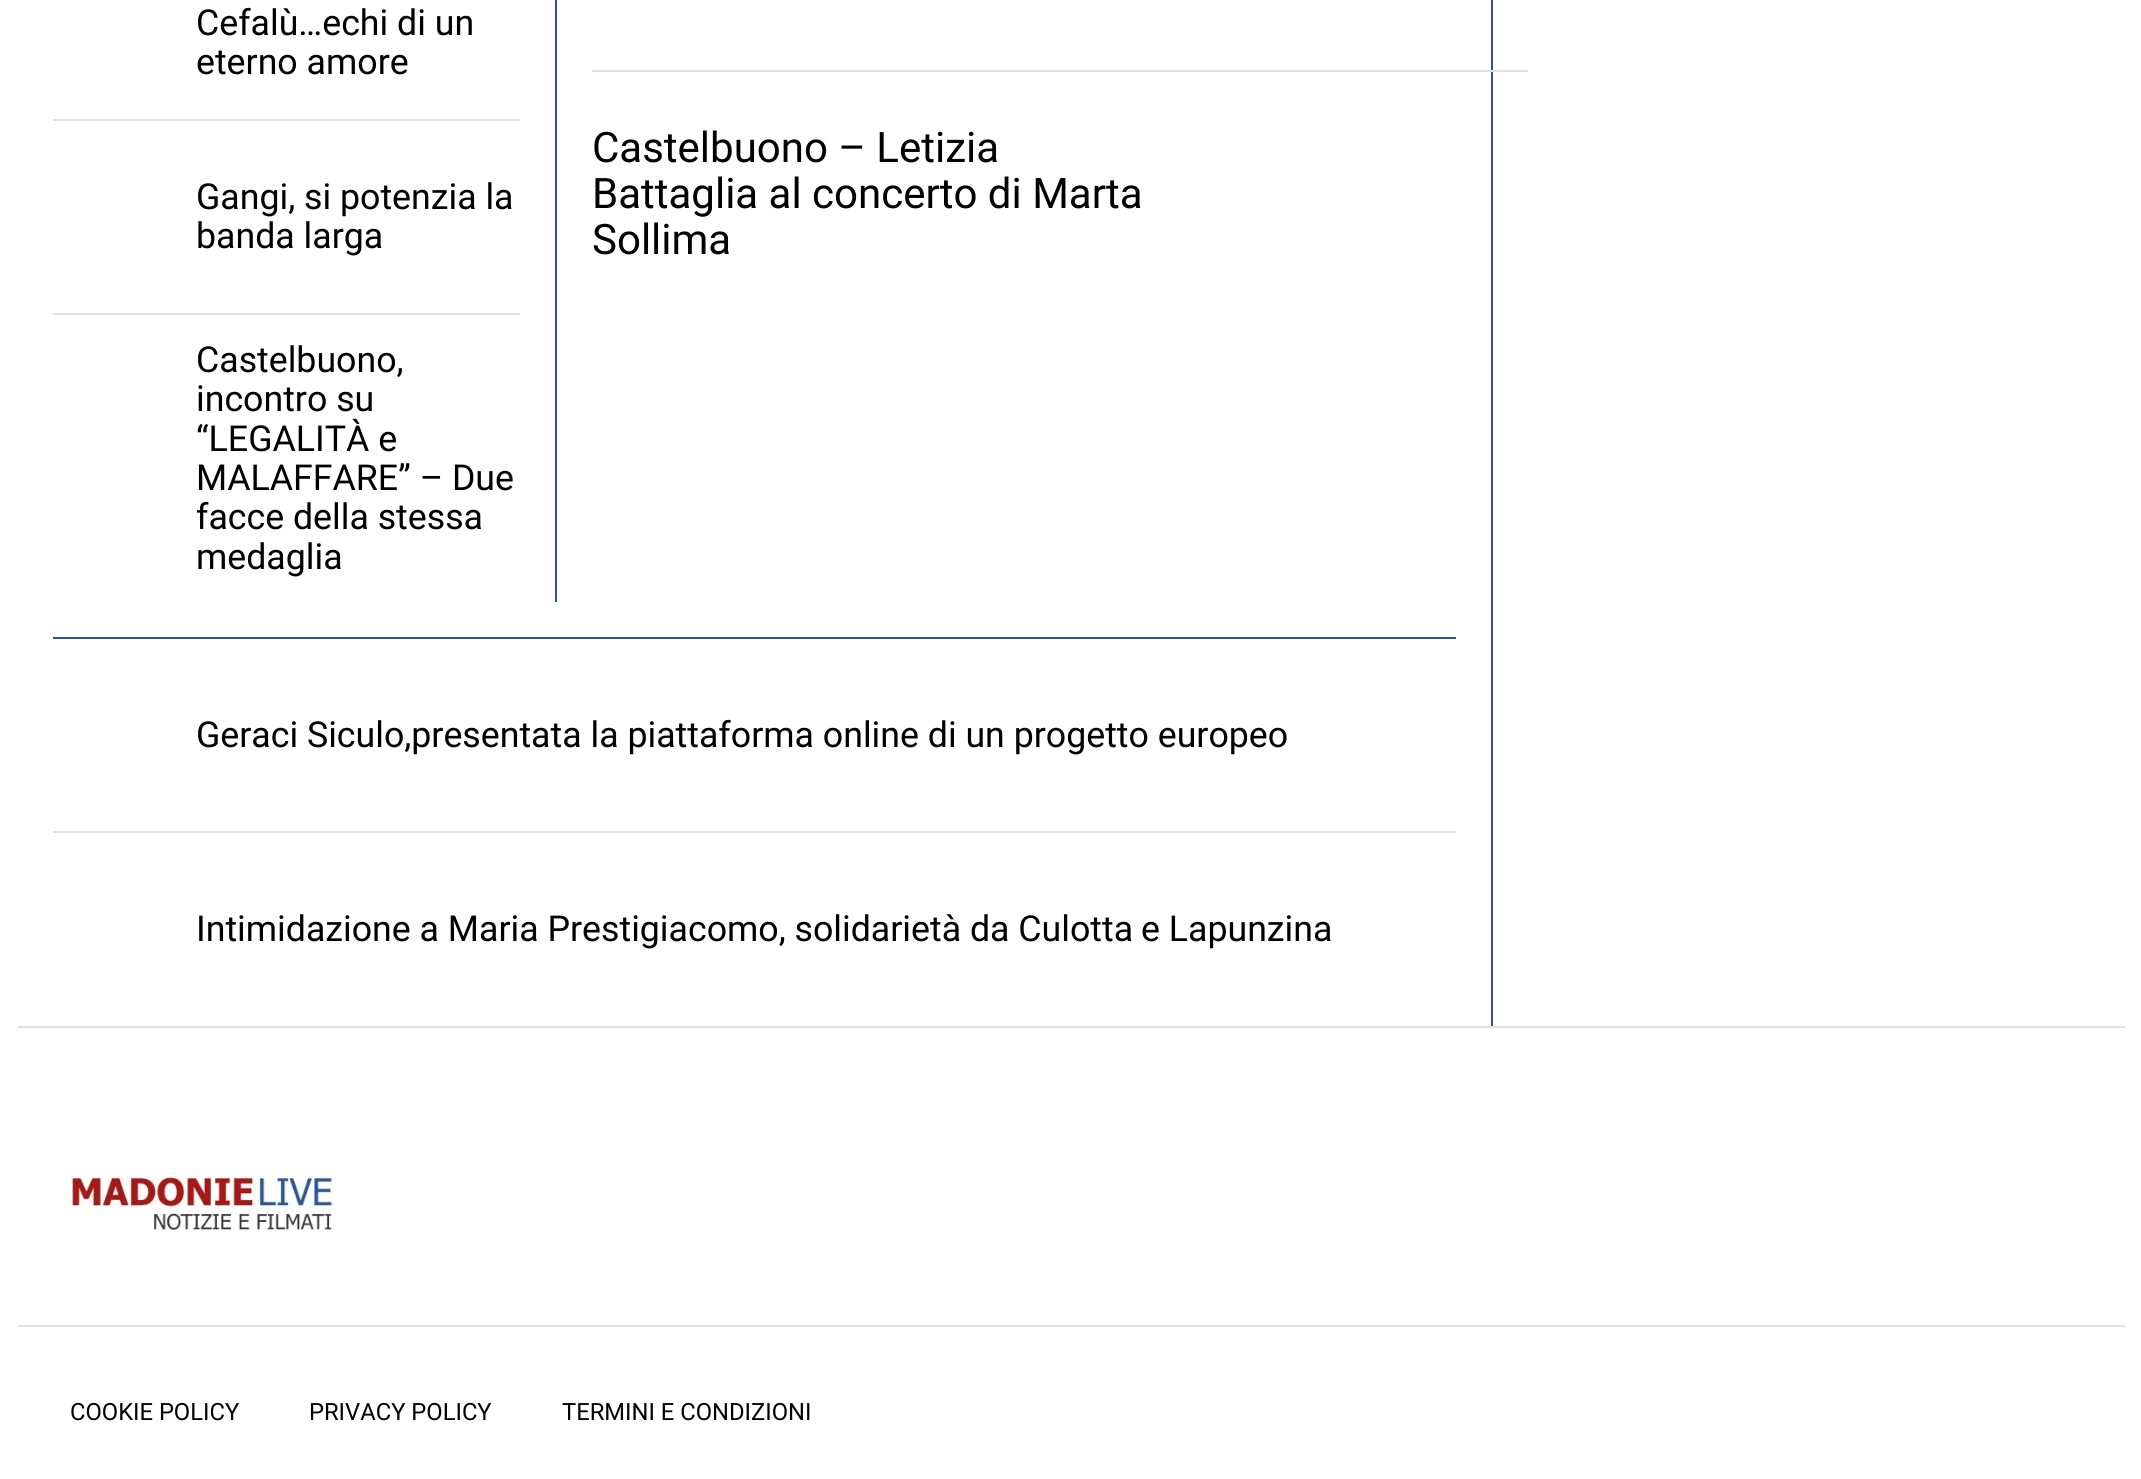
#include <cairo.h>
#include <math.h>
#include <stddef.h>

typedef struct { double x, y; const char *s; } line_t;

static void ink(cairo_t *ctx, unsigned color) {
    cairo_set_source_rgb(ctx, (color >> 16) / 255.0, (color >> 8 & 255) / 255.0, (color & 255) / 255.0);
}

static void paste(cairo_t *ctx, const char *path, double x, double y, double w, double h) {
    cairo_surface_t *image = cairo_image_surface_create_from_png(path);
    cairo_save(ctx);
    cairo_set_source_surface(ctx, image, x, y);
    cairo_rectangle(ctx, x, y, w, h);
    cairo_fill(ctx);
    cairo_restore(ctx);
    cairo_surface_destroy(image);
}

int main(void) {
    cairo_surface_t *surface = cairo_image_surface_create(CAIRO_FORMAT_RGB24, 2141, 1479);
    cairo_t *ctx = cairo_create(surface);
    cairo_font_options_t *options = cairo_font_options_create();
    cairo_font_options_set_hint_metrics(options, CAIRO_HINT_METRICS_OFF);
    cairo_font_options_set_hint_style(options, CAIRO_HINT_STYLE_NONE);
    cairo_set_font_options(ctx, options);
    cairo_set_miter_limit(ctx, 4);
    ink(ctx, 0xFFFFFF);
    cairo_paint(ctx);
    ink(ctx, 0x2D539C);
    cairo_rectangle(ctx, 1491, 0, 2, 1026);
    cairo_fill(ctx);
    cairo_rectangle(ctx, 53, 637, 1403, 2);
    cairo_fill(ctx);
    cairo_select_font_face(ctx, "Roboto", CAIRO_FONT_SLANT_NORMAL, CAIRO_FONT_WEIGHT_NORMAL);
    cairo_set_font_size(ctx, 35.7);
    ink(ctx, 0x000000);
    cairo_move_to(ctx, 196, 35);
    cairo_show_text(ctx, "Cefalù…echi di un");
    cairo_move_to(ctx, 196, 74);
    cairo_show_text(ctx, "eterno amore");
    ink(ctx, 0xE0E0E0);
    cairo_rectangle(ctx, 53, 119, 467, 2);
    cairo_fill(ctx);
    ink(ctx, 0x000000);
    cairo_move_to(ctx, 196, 209);
    cairo_show_text(ctx, "Gangi, si potenzia la");
    cairo_move_to(ctx, 196, 248);
    cairo_show_text(ctx, "banda larga");
    ink(ctx, 0xE0E0E0);
    cairo_rectangle(ctx, 53, 313, 467, 2);
    cairo_fill(ctx);
    ink(ctx, 0x000000);
    {
        static const line_t items[] = {
            {196, 372, "Castelbuono,"},
            {196, 411, "incontro su"},
            {196, 451, "“LEGALITÀ e"},
            {196, 490, "MALAFFARE” – Due"},
            {196, 529, "facce della stessa"},
            {196, 569, "medaglia"},
        };
        for (size_t i = 0; i < sizeof items / sizeof *items; i++) {
            cairo_move_to(ctx, items[i].x, items[i].y);
            cairo_show_text(ctx, items[i].s);
        }
    }
    ink(ctx, 0x2D539C);
    cairo_rectangle(ctx, 555, 0, 2, 602);
    cairo_fill(ctx);
    ink(ctx, 0xE0E0E0);
    cairo_rectangle(ctx, 592, 70, 936, 2);
    cairo_fill(ctx);
    cairo_set_font_size(ctx, 42);
    ink(ctx, 0x000000);
    {
        static const line_t items[] = {
            {592, 162, "Castelbuono – Letizia"},
            {592, 208, "Battaglia al concerto di Marta"},
            {592, 254, "Sollima"},
        };
        for (size_t i = 0; i < sizeof items / sizeof *items; i++) {
            cairo_move_to(ctx, items[i].x, items[i].y);
            cairo_show_text(ctx, items[i].s);
        }
    }
    cairo_set_font_size(ctx, 35.7);
    cairo_move_to(ctx, 196, 747);
    cairo_show_text(ctx, "Geraci Siculo,presentata la piattaforma online di un progetto europeo");
    ink(ctx, 0xE0E0E0);
    cairo_rectangle(ctx, 53, 831, 1403, 2);
    cairo_fill(ctx);
    ink(ctx, 0x000000);
    cairo_move_to(ctx, 196, 941);
    cairo_show_text(ctx, "Intimidazione a Maria Prestigiacomo, solidarietà da Culotta");
    cairo_move_to(ctx, 1141, 941);
    cairo_show_text(ctx, "e Lapunzina");
    ink(ctx, 0xE0E0E0);
    cairo_rectangle(ctx, 18, 1026, 2107, 2);
    cairo_fill(ctx);
    cairo_rectangle(ctx, 18, 1325, 2107, 2);
    cairo_fill(ctx);
    paste(ctx, "media/1.png", 70, 1173, 263, 57);
    cairo_set_font_size(ctx, 23.75);
    ink(ctx, 0x000000);
    {
        static const line_t items[] = {
            {70, 1420, "COOKIE POLICY"},
            {309, 1420, "PRIVACY POLICY"},
            {562, 1420, "TERMINI E CONDIZIONI"},
        };
        for (size_t i = 0; i < sizeof items / sizeof *items; i++) {
            cairo_move_to(ctx, items[i].x, items[i].y);
            cairo_show_text(ctx, items[i].s);
        }
    }
    cairo_surface_write_to_png(surface, "image.png");
    cairo_font_options_destroy(options);
    cairo_destroy(ctx);
    cairo_surface_destroy(surface);
    return 0;
}
